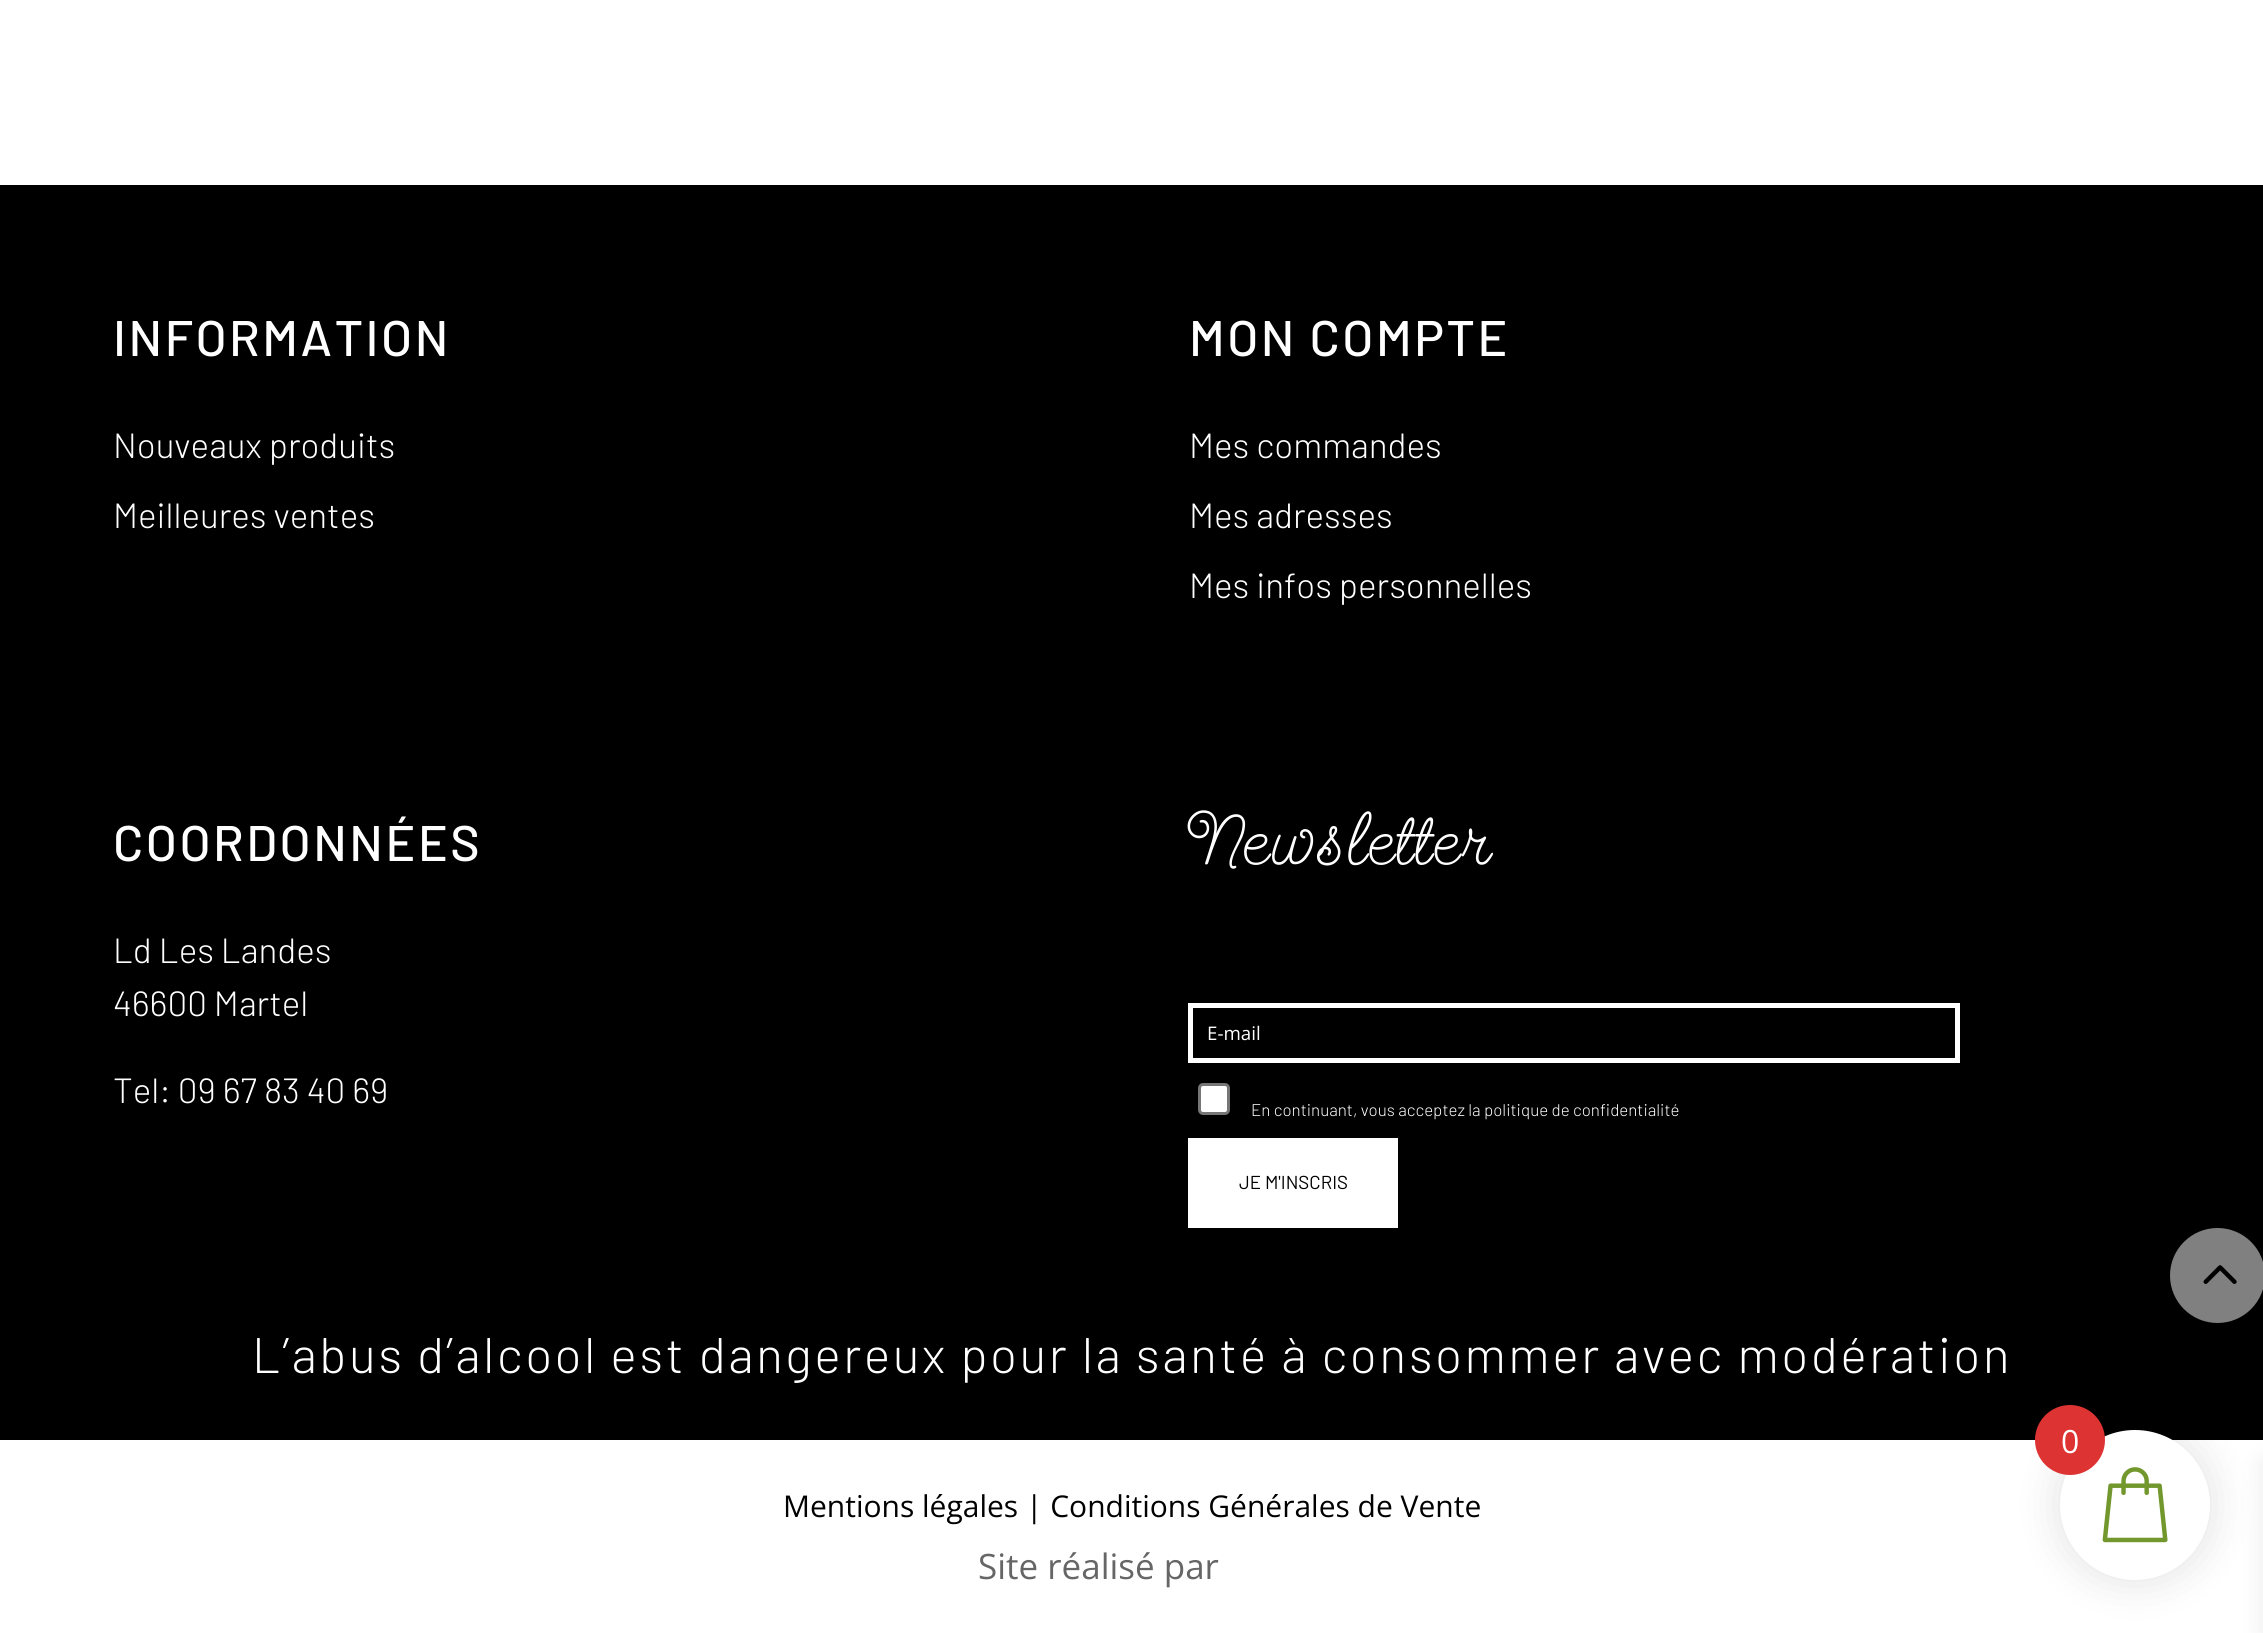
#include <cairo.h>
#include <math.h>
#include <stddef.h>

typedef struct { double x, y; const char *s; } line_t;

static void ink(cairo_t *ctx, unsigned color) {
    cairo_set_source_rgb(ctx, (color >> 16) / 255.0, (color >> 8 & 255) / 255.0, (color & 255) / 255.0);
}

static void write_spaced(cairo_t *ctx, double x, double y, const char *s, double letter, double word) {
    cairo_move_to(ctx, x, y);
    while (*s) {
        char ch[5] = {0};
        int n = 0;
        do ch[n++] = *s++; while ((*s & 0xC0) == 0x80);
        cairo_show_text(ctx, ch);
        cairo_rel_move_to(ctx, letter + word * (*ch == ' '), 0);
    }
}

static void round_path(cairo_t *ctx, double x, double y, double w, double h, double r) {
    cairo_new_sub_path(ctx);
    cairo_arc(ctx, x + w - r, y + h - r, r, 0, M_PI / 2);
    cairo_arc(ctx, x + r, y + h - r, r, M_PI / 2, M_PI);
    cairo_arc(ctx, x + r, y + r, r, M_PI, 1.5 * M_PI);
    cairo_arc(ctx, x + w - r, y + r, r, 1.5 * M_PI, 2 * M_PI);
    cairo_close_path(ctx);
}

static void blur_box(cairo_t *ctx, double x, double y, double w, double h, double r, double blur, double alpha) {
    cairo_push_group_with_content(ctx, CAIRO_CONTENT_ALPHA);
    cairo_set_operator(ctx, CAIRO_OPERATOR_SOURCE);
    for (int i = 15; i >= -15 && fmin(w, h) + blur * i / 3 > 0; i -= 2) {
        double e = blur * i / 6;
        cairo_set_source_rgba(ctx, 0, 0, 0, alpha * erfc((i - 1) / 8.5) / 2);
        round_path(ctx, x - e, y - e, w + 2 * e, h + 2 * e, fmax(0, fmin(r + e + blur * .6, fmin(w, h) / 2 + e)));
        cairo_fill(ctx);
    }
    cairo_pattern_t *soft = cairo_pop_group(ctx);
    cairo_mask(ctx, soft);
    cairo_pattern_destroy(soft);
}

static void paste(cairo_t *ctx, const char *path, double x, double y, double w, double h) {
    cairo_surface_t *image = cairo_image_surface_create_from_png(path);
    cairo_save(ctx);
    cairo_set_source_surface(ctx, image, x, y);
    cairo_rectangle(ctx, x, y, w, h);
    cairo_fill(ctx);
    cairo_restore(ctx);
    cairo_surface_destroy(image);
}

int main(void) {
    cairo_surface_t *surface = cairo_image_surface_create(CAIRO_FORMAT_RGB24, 2263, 1633);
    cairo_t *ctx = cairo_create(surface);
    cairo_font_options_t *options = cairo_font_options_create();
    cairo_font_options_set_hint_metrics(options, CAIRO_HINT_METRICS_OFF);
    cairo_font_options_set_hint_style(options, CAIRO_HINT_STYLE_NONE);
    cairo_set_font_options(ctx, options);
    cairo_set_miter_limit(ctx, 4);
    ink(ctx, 0xFFFFFF);
    cairo_paint(ctx);
    ink(ctx, 0x000000);
    cairo_rectangle(ctx, 0, 185, 2263, 1255);
    cairo_fill(ctx);
    cairo_select_font_face(ctx, "Barlow Medium", CAIRO_FONT_SLANT_NORMAL, CAIRO_FONT_WEIGHT_NORMAL);
    cairo_set_font_size(ctx, 50);
    ink(ctx, 0xFFFFFF);
    write_spaced(ctx, 113, 356, "INFORMATION", 2.5, 0);
    cairo_select_font_face(ctx, "Barlow Light", CAIRO_FONT_SLANT_NORMAL, CAIRO_FONT_WEIGHT_NORMAL);
    cairo_set_font_size(ctx, 35);
    cairo_move_to(ctx, 113, 458);
    cairo_show_text(ctx, "Nouveaux produits");
    cairo_move_to(ctx, 113, 528);
    cairo_show_text(ctx, "Meilleures ventes");
    cairo_select_font_face(ctx, "Barlow Medium", CAIRO_FONT_SLANT_NORMAL, CAIRO_FONT_WEIGHT_NORMAL);
    cairo_set_font_size(ctx, 50);
    write_spaced(ctx, 1189, 356, "MON COMPTE", 2.5, 0);
    cairo_select_font_face(ctx, "Barlow Light", CAIRO_FONT_SLANT_NORMAL, CAIRO_FONT_WEIGHT_NORMAL);
    cairo_set_font_size(ctx, 35);
    {
        static const line_t items[] = {
            {1189, 458, "Mes commandes"},
            {1189, 528, "Mes adresses"},
            {1189, 598, "Mes infos personnelles"},
        };
        for (size_t i = 0; i < sizeof items / sizeof *items; i++) {
            cairo_move_to(ctx, items[i].x, items[i].y);
            cairo_show_text(ctx, items[i].s);
        }
    }
    cairo_select_font_face(ctx, "Barlow Medium", CAIRO_FONT_SLANT_NORMAL, CAIRO_FONT_WEIGHT_NORMAL);
    cairo_set_font_size(ctx, 50);
    write_spaced(ctx, 113, 861, "COORDONNÉES", 2.5, 0);
    cairo_select_font_face(ctx, "Barlow Light", CAIRO_FONT_SLANT_NORMAL, CAIRO_FONT_WEIGHT_NORMAL);
    cairo_set_font_size(ctx, 35);
    {
        static const line_t items[] = {
            {113, 963, "Ld Les Landes"},
            {113, 1016, "46600 Martel"},
            {113, 1103, "Tel: 09 67 83 40 69"},
        };
        for (size_t i = 0; i < sizeof items / sizeof *items; i++) {
            cairo_move_to(ctx, items[i].x, items[i].y);
            cairo_show_text(ctx, items[i].s);
        }
    }
    cairo_select_font_face(ctx, "Send Flowers", CAIRO_FONT_SLANT_NORMAL, CAIRO_FONT_WEIGHT_NORMAL);
    cairo_set_font_size(ctx, 75);
    write_spaced(ctx, 1189, 864, "Newsletter", 2.5, 0);
    cairo_rectangle(ctx, 1190.5, 1005.5, 767, 55);
    cairo_set_line_width(ctx, 5);
    cairo_stroke(ctx);
    cairo_select_font_face(ctx, "Open Sans", CAIRO_FONT_SLANT_NORMAL, CAIRO_FONT_WEIGHT_NORMAL);
    cairo_set_font_size(ctx, 18.75);
    cairo_move_to(ctx, 1207, 1040);
    cairo_show_text(ctx, "E-mail");
    round_path(ctx, 1199.5, 1084.5, 29, 29, 3.5);
    cairo_fill_preserve(ctx);
    ink(ctx, 0x767676);
    cairo_set_line_width(ctx, 3);
    cairo_stroke(ctx);
    cairo_select_font_face(ctx, "Barlow Light", CAIRO_FONT_SLANT_NORMAL, CAIRO_FONT_WEIGHT_NORMAL);
    cairo_set_font_size(ctx, 16.9);
    ink(ctx, 0xFFFFFF);
    cairo_move_to(ctx, 1251, 1116);
    cairo_show_text(ctx, "En continuant, vous acceptez la politique de confidentialité");
    cairo_rectangle(ctx, 1188, 1138, 210, 90);
    cairo_fill(ctx);
    cairo_select_font_face(ctx, "Barlow", CAIRO_FONT_SLANT_NORMAL, CAIRO_FONT_WEIGHT_NORMAL);
    cairo_set_font_size(ctx, 18.75);
    ink(ctx, 0x000000);
    cairo_move_to(ctx, 1239, 1189);
    cairo_show_text(ctx, "JE M'INSCRIS");
    cairo_select_font_face(ctx, "Barlow Light", CAIRO_FONT_SLANT_NORMAL, CAIRO_FONT_WEIGHT_NORMAL);
    cairo_set_font_size(ctx, 50);
    ink(ctx, 0xFFFFFF);
    write_spaced(ctx, 252, 1373, "L’abus d’alcool est dangereux pour la santé à consommer avec modération", 2.5, 0);
    cairo_select_font_face(ctx, "Open Sans", CAIRO_FONT_SLANT_NORMAL, CAIRO_FONT_WEIGHT_NORMAL);
    cairo_set_font_size(ctx, 30);
    ink(ctx, 0x000000);
    cairo_move_to(ctx, 783, 1517);
    cairo_show_text(ctx, "Mentions légales | Conditions Générales de Vente");
    cairo_set_font_size(ctx, 35);
    ink(ctx, 0x666666);
    cairo_move_to(ctx, 978, 1579);
    cairo_show_text(ctx, "Site réalisé par");
    ink(ctx, 0x808080);
    cairo_new_path(ctx);
    cairo_arc(ctx, 2217.5, 1275.5, 47.5, 0, 2 * M_PI);
    cairo_fill(ctx);
    paste(ctx, "media/1.png", 2203, 1265, 34, 19);
    ink(ctx, 0x000000);
    blur_box(ctx, 2055, 1425, 160, 160, 80, 19, 0.1);
    ink(ctx, 0xFFFFFF);
    cairo_arc(ctx, 2135, 1505, 75, 0, 2 * M_PI);
    cairo_fill(ctx);
    paste(ctx, "media/2.png", 2102, 1467, 66, 76);
    ink(ctx, 0xDD3333);
    cairo_arc(ctx, 2070, 1440, 35, 0, 2 * M_PI);
    cairo_fill(ctx);
    cairo_set_font_size(ctx, 32);
    ink(ctx, 0xFFFFFF);
    cairo_move_to(ctx, 2061, 1453);
    cairo_show_text(ctx, "0");
    ink(ctx, 0x000000);
    blur_box(ctx, 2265, 1463, 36, 170, 0, 12.5, 0.1);
    cairo_surface_write_to_png(surface, "image.png");
    cairo_font_options_destroy(options);
    cairo_destroy(ctx);
    cairo_surface_destroy(surface);
    return 0;
}
